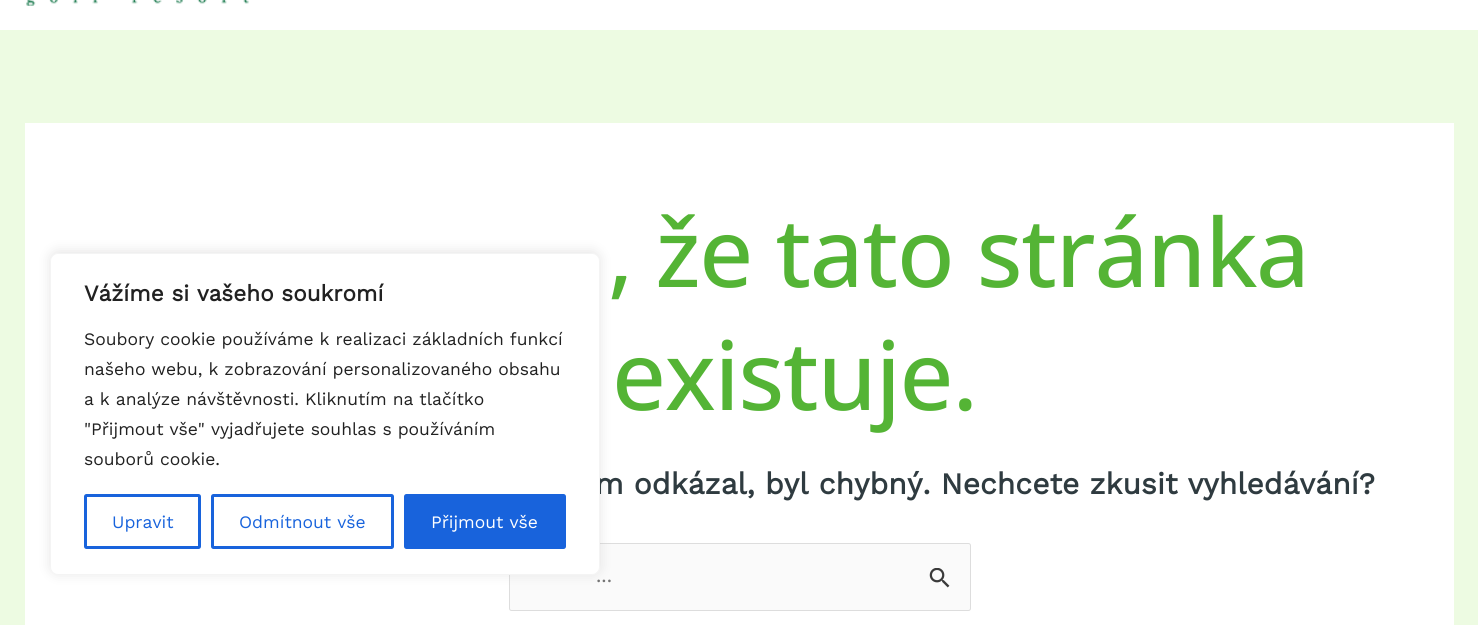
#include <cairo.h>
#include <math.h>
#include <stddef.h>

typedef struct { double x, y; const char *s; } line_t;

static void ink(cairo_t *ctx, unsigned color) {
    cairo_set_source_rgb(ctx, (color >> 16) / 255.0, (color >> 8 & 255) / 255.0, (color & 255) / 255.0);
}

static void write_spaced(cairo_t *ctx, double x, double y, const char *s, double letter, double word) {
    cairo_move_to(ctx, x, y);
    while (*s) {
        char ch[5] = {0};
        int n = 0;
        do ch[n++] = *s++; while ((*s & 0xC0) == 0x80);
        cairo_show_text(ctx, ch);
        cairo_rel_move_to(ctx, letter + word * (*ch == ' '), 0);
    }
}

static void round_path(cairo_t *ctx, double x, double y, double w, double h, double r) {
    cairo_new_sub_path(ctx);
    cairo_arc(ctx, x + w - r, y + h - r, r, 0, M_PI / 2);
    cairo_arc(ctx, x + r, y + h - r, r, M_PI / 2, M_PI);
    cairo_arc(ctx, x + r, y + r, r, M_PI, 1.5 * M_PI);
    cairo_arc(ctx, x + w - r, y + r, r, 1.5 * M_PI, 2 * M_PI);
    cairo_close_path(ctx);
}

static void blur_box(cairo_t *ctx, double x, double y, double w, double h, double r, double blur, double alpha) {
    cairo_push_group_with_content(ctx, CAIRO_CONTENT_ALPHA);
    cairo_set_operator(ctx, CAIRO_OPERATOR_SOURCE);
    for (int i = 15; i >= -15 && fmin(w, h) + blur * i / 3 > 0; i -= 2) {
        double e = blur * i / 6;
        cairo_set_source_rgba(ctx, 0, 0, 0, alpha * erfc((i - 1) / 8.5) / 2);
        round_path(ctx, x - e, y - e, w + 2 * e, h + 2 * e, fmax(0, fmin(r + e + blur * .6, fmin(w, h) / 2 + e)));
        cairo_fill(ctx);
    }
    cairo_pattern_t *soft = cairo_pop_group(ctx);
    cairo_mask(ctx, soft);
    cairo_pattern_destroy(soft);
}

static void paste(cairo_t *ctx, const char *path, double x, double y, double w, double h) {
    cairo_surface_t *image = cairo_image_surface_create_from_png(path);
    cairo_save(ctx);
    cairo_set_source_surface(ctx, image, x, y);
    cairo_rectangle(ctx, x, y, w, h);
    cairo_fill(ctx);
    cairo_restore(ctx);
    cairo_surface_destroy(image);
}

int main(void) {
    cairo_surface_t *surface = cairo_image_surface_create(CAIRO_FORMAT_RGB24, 1478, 625);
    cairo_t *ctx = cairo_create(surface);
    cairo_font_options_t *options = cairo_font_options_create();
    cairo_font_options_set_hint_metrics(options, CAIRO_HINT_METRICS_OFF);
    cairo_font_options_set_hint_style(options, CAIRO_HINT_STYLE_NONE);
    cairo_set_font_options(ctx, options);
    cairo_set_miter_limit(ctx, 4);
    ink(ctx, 0xEDFBE2);
    cairo_paint(ctx);
    ink(ctx, 0xFFFFFF);
    cairo_rectangle(ctx, 25, 123, 1429, 502);
    cairo_fill(ctx);
    ink(ctx, 0xFAFAFA);
    round_path(ctx, 509.5, 543.5, 461, 67, 2);
    cairo_fill_preserve(ctx);
    ink(ctx, 0xDDDDDD);
    cairo_set_line_width(ctx, 1);
    cairo_stroke(ctx);
    ink(ctx, 0xACABAB);
    blur_box(ctx, 50, 251, 550, 323, 8, 6, 0.3);
    cairo_select_font_face(ctx, "Work Sans", CAIRO_FONT_SLANT_NORMAL, CAIRO_FONT_WEIGHT_BOLD);
    cairo_set_font_size(ctx, 30);
    ink(ctx, 0x2F3B40);
    cairo_move_to(ctx, 595, 494);
    cairo_show_text(ctx, "m odkázal, byl chybný. Nechcete zkusit vyhledávání?");
    ink(ctx, 0xFFFFFF);
    round_path(ctx, 50.5, 253.5, 549, 321, 7.5);
    cairo_fill_preserve(ctx);
    ink(ctx, 0xF4F4F4);
    cairo_stroke(ctx);
    cairo_set_font_size(ctx, 22.5);
    ink(ctx, 0x212121);
    cairo_move_to(ctx, 84, 301);
    cairo_show_text(ctx, "Vážíme si vašeho soukromí");
    cairo_select_font_face(ctx, "Work Sans", CAIRO_FONT_SLANT_NORMAL, CAIRO_FONT_WEIGHT_NORMAL);
    cairo_set_font_size(ctx, 17.5);
    {
        static const line_t items[] = {
            {84, 345, "Soubory cookie používáme k realizaci základních funkcí"},
            {84, 375, "našeho webu, k zobrazování personalizovaného obsahu"},
            {84, 405, "a k analýze návštěvnosti. Kliknutím na tlačítko"},
            {84, 435, "\"Přijmout vše\" vyjadřujete souhlas s používáním"},
            {84, 465, "souborů cookie."},
        };
        for (size_t i = 0; i < sizeof items / sizeof *items; i++) {
            cairo_move_to(ctx, items[i].x, items[i].y);
            cairo_show_text(ctx, items[i].s);
        }
    }
    round_path(ctx, 85.5, 495.5, 114, 52, 1);
    ink(ctx, 0x1863DC);
    cairo_set_line_width(ctx, 3);
    cairo_stroke(ctx);
    cairo_move_to(ctx, 112, 528);
    cairo_show_text(ctx, "Upravit");
    round_path(ctx, 212.5, 495.5, 180, 52, 1);
    cairo_stroke(ctx);
    cairo_move_to(ctx, 239, 528);
    cairo_show_text(ctx, "Odmítnout vše");
    round_path(ctx, 405.5, 495.5, 159, 52, 1);
    cairo_fill_preserve(ctx);
    cairo_stroke(ctx);
    ink(ctx, 0xFFFFFF);
    cairo_move_to(ctx, 431, 528);
    cairo_show_text(ctx, "Přijmout vše");
    cairo_rectangle(ctx, 0, 0, 1478, 30);
    cairo_fill(ctx);
    paste(ctx, "media/1.png", 26, 0, 223, 6);
    cairo_select_font_face(ctx, "Open Sans Medium", CAIRO_FONT_SLANT_NORMAL, CAIRO_FONT_WEIGHT_NORMAL);
    cairo_set_font_size(ctx, 95);
    ink(ctx, 0x54B435);
    write_spaced(ctx, 608, 287, ", že tato stránka", -1.25, 0);
    write_spaced(ctx, 612, 410, "existuje.", -1.25, 0);
    cairo_select_font_face(ctx, "Work Sans", CAIRO_FONT_SLANT_NORMAL, CAIRO_FONT_WEIGHT_NORMAL);
    cairo_set_font_size(ctx, 20);
    ink(ctx, 0x757575);
    cairo_move_to(ctx, 596, 582);
    cairo_show_text(ctx, "...");
    paste(ctx, "media/2.png", 929, 568, 21, 20);
    cairo_surface_write_to_png(surface, "image.png");
    cairo_font_options_destroy(options);
    cairo_destroy(ctx);
    cairo_surface_destroy(surface);
    return 0;
}
